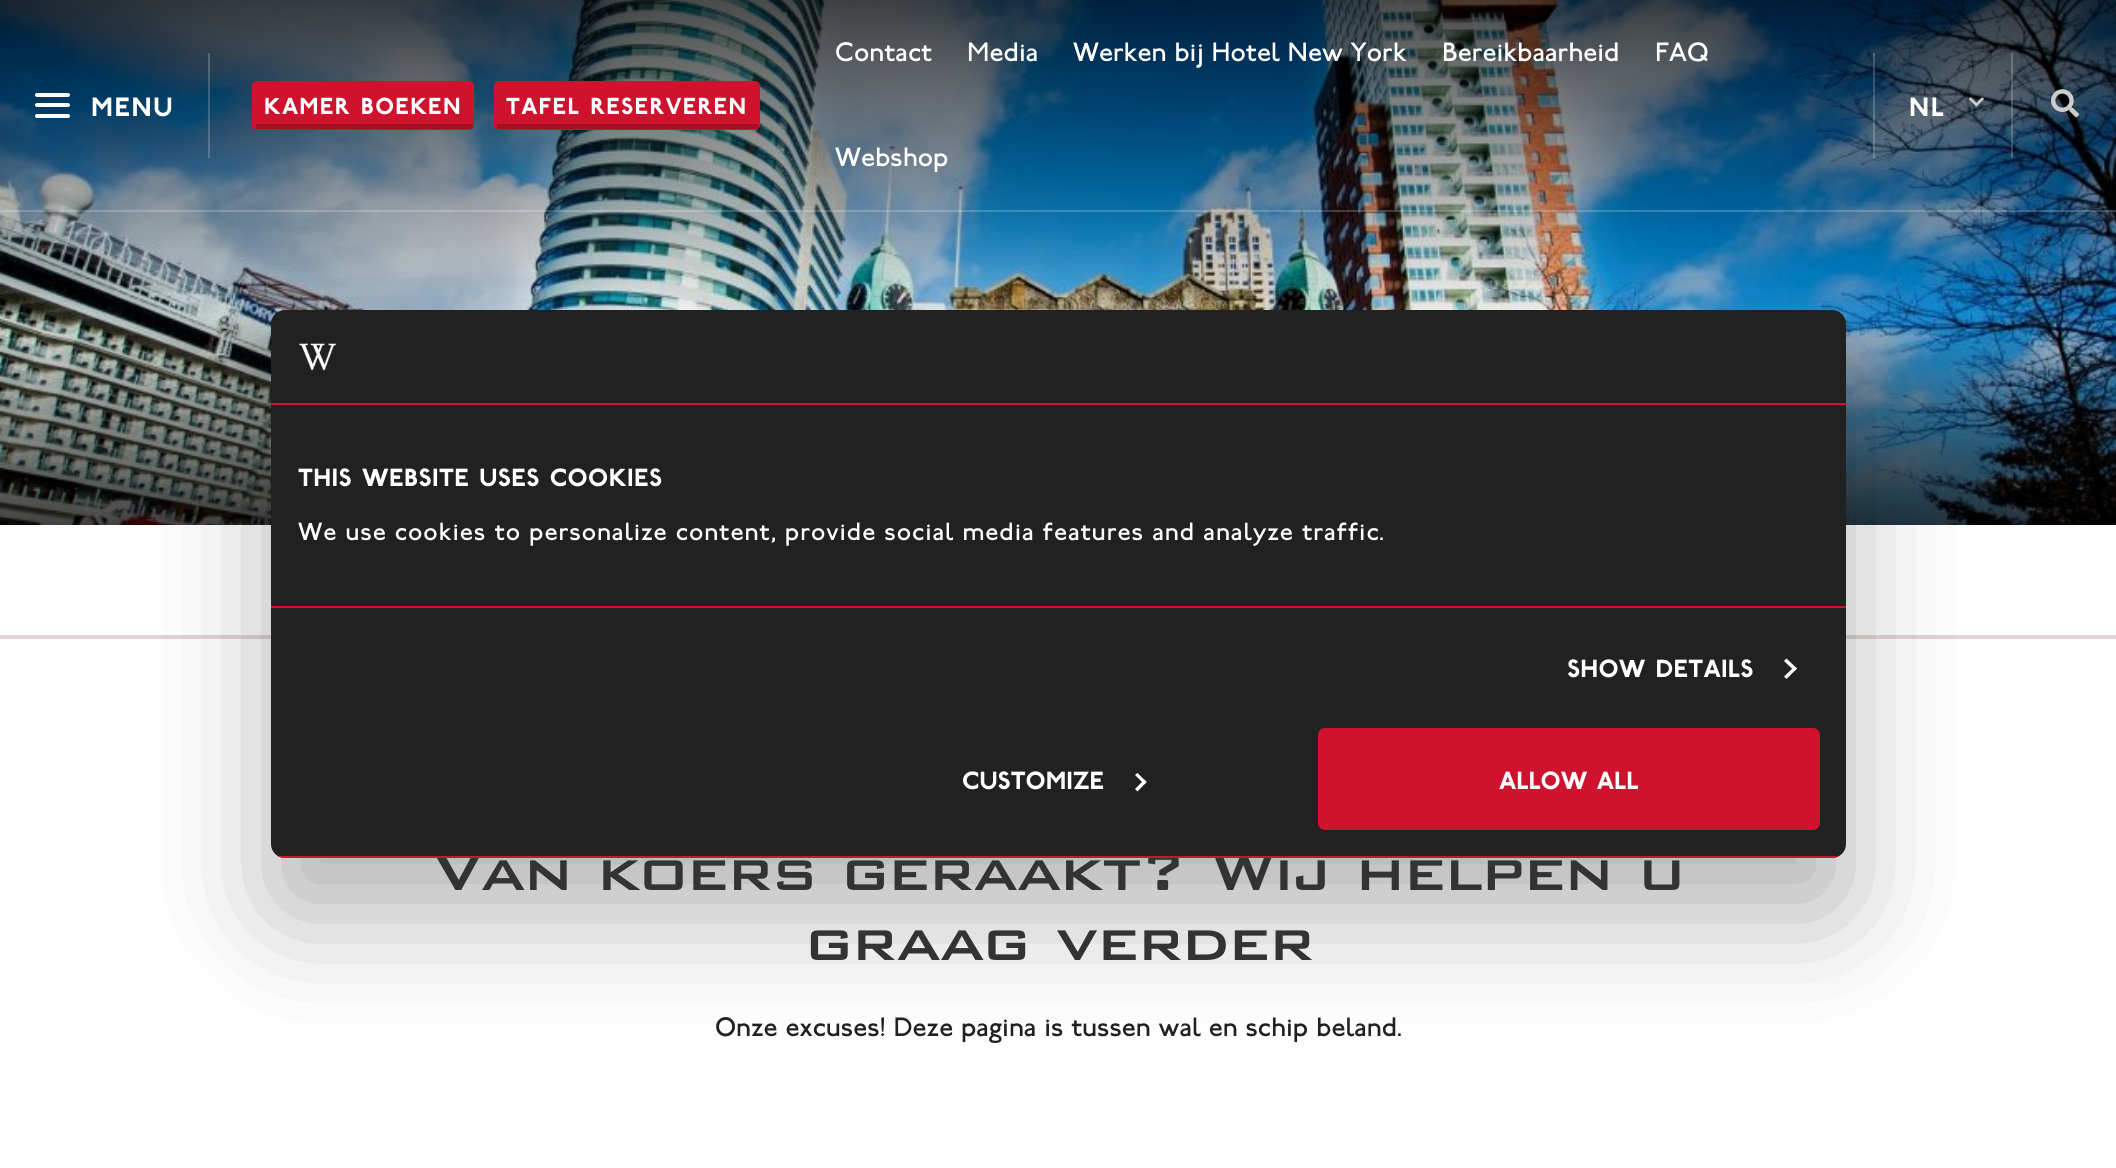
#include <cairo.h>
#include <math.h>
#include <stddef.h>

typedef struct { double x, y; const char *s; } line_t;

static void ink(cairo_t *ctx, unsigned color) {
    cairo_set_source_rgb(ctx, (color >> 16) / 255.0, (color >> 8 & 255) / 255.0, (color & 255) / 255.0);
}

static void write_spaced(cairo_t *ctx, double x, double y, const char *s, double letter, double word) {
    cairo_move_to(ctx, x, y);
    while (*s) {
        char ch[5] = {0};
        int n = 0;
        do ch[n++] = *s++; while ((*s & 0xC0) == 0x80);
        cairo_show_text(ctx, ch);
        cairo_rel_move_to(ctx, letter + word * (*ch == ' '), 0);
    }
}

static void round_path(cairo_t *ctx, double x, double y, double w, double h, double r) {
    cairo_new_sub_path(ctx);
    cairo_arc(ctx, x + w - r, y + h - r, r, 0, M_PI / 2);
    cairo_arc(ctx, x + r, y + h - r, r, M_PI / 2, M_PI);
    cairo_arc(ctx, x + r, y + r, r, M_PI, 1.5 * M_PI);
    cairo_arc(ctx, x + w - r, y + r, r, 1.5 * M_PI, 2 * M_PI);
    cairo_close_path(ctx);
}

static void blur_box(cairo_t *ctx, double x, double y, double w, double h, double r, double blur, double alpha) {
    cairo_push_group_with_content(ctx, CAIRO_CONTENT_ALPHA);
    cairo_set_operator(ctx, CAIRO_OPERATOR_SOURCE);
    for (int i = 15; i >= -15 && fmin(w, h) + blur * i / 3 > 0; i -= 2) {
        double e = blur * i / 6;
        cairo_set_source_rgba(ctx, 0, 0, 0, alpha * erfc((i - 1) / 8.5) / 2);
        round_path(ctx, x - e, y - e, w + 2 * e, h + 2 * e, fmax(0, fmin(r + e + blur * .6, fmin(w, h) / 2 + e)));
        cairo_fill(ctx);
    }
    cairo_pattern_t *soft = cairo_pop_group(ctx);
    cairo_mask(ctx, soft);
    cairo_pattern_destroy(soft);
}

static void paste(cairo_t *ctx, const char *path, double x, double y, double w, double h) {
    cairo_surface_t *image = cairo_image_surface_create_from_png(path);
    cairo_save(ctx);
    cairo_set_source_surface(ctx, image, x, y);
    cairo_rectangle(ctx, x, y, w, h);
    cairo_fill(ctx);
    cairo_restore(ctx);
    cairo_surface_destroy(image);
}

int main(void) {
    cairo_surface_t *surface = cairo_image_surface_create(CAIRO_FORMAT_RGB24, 2116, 1168);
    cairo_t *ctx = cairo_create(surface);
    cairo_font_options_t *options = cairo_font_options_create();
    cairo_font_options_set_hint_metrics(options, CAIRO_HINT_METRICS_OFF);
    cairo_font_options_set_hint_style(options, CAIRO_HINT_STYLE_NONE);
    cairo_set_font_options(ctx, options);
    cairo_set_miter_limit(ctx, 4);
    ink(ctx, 0xFFFFFF);
    cairo_paint(ctx);
    paste(ctx, "media/1.png", 0, 0, 2116, 525);
    cairo_set_source_rgba(ctx, 1, 1, 1, 0.2);
    cairo_rectangle(ctx, 0, 210, 2116, 2);
    cairo_fill(ctx);
    cairo_rectangle(ctx, 208, 53, 2, 105);
    cairo_fill(ctx);
    ink(ctx, 0xFFFFFF);
    round_path(ctx, 35, 93, 35, 4, 2);
    cairo_fill(ctx);
    round_path(ctx, 35, 103, 35, 4, 2);
    cairo_fill(ctx);
    round_path(ctx, 35, 114, 35, 4, 2);
    cairo_fill(ctx);
    cairo_select_font_face(ctx, "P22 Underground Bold", CAIRO_FONT_SLANT_NORMAL, CAIRO_FONT_WEIGHT_BOLD);
    cairo_set_font_size(ctx, 28);
    write_spaced(ctx, 91, 116, "MENU", 1.5, 0);
    ink(ctx, 0xCF122D);
    round_path(ctx, 252, 81, 222, 49, 5);
    cairo_fill(ctx);
    cairo_set_source_rgba(ctx, 0, 0, 0, 0.2);
    cairo_rectangle(ctx, 256, 124, 217, 5);
    cairo_fill(ctx);
    cairo_set_font_size(ctx, 24.5);
    ink(ctx, 0xFFFFFF);
    write_spaced(ctx, 264, 114, "KAMER BOEKEN", 1.25, 0);
    ink(ctx, 0xCF122D);
    round_path(ctx, 494, 81, 266, 49, 5);
    cairo_fill(ctx);
    ink(ctx, 0xA60E24);
    cairo_rectangle(ctx, 497, 124, 261, 5);
    cairo_fill(ctx);
    ink(ctx, 0xFFFFFF);
    write_spaced(ctx, 506, 114, "TAFEL RESERVEREN", 1.25, 0);
    cairo_select_font_face(ctx, "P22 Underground", CAIRO_FONT_SLANT_NORMAL, CAIRO_FONT_WEIGHT_NORMAL);
    cairo_set_font_size(ctx, 28);
    {
        static const line_t items[] = {
            {835, 61, "Contact"},
            {967, 61, "Media"},
            {1073, 61, "Werken bij Hotel New York"},
            {1442, 61, "Bereikbaarheid"},
            {1655, 61, "FAQ"},
            {835, 166, "Webshop"},
        };
        for (size_t i = 0; i < sizeof items / sizeof *items; i++) {
            cairo_move_to(ctx, items[i].x, items[i].y);
            cairo_show_text(ctx, items[i].s);
        }
    }
    cairo_set_source_rgba(ctx, 1, 1, 1, 0.2);
    cairo_rectangle(ctx, 1873, 53, 2, 105);
    cairo_fill(ctx);
    cairo_select_font_face(ctx, "P22 Underground Bold", CAIRO_FONT_SLANT_NORMAL, CAIRO_FONT_WEIGHT_BOLD);
    ink(ctx, 0xFFFFFF);
    write_spaced(ctx, 1909, 116, "NL", 1.5, 0);
    paste(ctx, "media/2.png", 1969, 97, 15, 10);
    cairo_set_source_rgba(ctx, 1, 1, 1, 0.2);
    cairo_rectangle(ctx, 2011, 53, 2, 105);
    cairo_fill(ctx);
    paste(ctx, "media/3.png", 2051, 89, 28, 29);
    ink(ctx, 0xE1D6D7);
    cairo_rectangle(ctx, 0, 635, 2116, 4);
    cairo_fill(ctx);
    ink(ctx, 0x000000);
    blur_box(ctx, 271, 366, 1575, 548, 14, 59.5, 0.3);
    cairo_select_font_face(ctx, "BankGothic", CAIRO_FONT_SLANT_NORMAL, CAIRO_FONT_WEIGHT_BOLD);
    cairo_set_font_size(ctx, 70);
    ink(ctx, 0x333333);
    write_spaced(ctx, 434, 890, "Van koers geraakt? Wij helpen u", -1.75, 0);
    ink(ctx, 0x212121);
    round_path(ctx, 271, 310, 1575, 548, 14);
    cairo_fill(ctx);
    ink(ctx, 0xCF122D);
    cairo_rectangle(ctx, 271, 403, 1575, 2);
    cairo_fill(ctx);
    paste(ctx, "media/4.png", 299, 343, 38, 28);
    cairo_rectangle(ctx, 271, 606, 1575, 2);
    cairo_fill(ctx);
    cairo_select_font_face(ctx, "P22 Underground Bold", CAIRO_FONT_SLANT_NORMAL, CAIRO_FONT_WEIGHT_BOLD);
    cairo_set_font_size(ctx, 26.25);
    ink(ctx, 0xFFFFFF);
    write_spaced(ctx, 298, 486, "This website uses cookies", 0.4, 0);
    cairo_select_font_face(ctx, "P22 Underground", CAIRO_FONT_SLANT_NORMAL, CAIRO_FONT_WEIGHT_NORMAL);
    write_spaced(ctx, 298, 540, "We use cookies to personalize content, provide social media features and analyze traffic.", 0.88, 0);
    cairo_select_font_face(ctx, "P22 Underground Bold", CAIRO_FONT_SLANT_NORMAL, CAIRO_FONT_WEIGHT_BOLD);
    write_spaced(ctx, 1567, 677, "Show details", 0.25, 0);
    cairo_new_path(ctx);
    cairo_move_to(ctx, 1786.5, 658.5);
    cairo_line_to(ctx, 1797, 668.5);
    cairo_line_to(ctx, 1794.5, 671);
    cairo_line_to(ctx, 1784, 661);
    cairo_close_path(ctx);
    cairo_fill(ctx);
    cairo_new_path(ctx);
    cairo_move_to(ctx, 1794.5, 666.5);
    cairo_line_to(ctx, 1797, 668.5);
    cairo_line_to(ctx, 1786.5, 679);
    cairo_line_to(ctx, 1784, 676.5);
    cairo_close_path(ctx);
    cairo_fill(ctx);
    cairo_save(ctx);
    round_path(ctx, 271, 310, 1575, 548, 14);
    cairo_clip(ctx);
    ink(ctx, 0xCF122D);
    cairo_rectangle(ctx, 271, 856, 1575, 2);
    cairo_fill(ctx);
    cairo_restore(ctx);
    cairo_move_to(ctx, 962, 789);
    cairo_show_text(ctx, "Customize");
    cairo_new_path(ctx);
    cairo_move_to(ctx, 1137.5, 773);
    cairo_line_to(ctx, 1146.5, 782);
    cairo_line_to(ctx, 1144.5, 784.5);
    cairo_line_to(ctx, 1135, 775);
    cairo_close_path(ctx);
    cairo_fill(ctx);
    cairo_new_path(ctx);
    cairo_move_to(ctx, 1144.5, 779.5);
    cairo_line_to(ctx, 1146.5, 782);
    cairo_line_to(ctx, 1137.5, 791.5);
    cairo_line_to(ctx, 1135, 789);
    cairo_close_path(ctx);
    cairo_fill(ctx);
    ink(ctx, 0xCF122D);
    round_path(ctx, 1320, 730, 498, 98, 5);
    cairo_fill_preserve(ctx);
    cairo_set_line_width(ctx, 4);
    cairo_stroke(ctx);
    ink(ctx, 0xFFFFFF);
    cairo_move_to(ctx, 1499, 789);
    cairo_show_text(ctx, "Allow all");
    cairo_select_font_face(ctx, "BankGothic", CAIRO_FONT_SLANT_NORMAL, CAIRO_FONT_WEIGHT_BOLD);
    cairo_set_font_size(ctx, 70);
    ink(ctx, 0x333333);
    write_spaced(ctx, 805, 960, "graag verder", -1.75, 0);
    cairo_select_font_face(ctx, "P22 Underground", CAIRO_FONT_SLANT_NORMAL, CAIRO_FONT_WEIGHT_NORMAL);
    cairo_set_font_size(ctx, 28);
    ink(ctx, 0x212121);
    cairo_move_to(ctx, 715, 1036);
    cairo_show_text(ctx, "Onze excuses! Deze pagina is tussen wal en schip beland.");
    cairo_surface_write_to_png(surface, "image.png");
    cairo_font_options_destroy(options);
    cairo_destroy(ctx);
    cairo_surface_destroy(surface);
    return 0;
}
